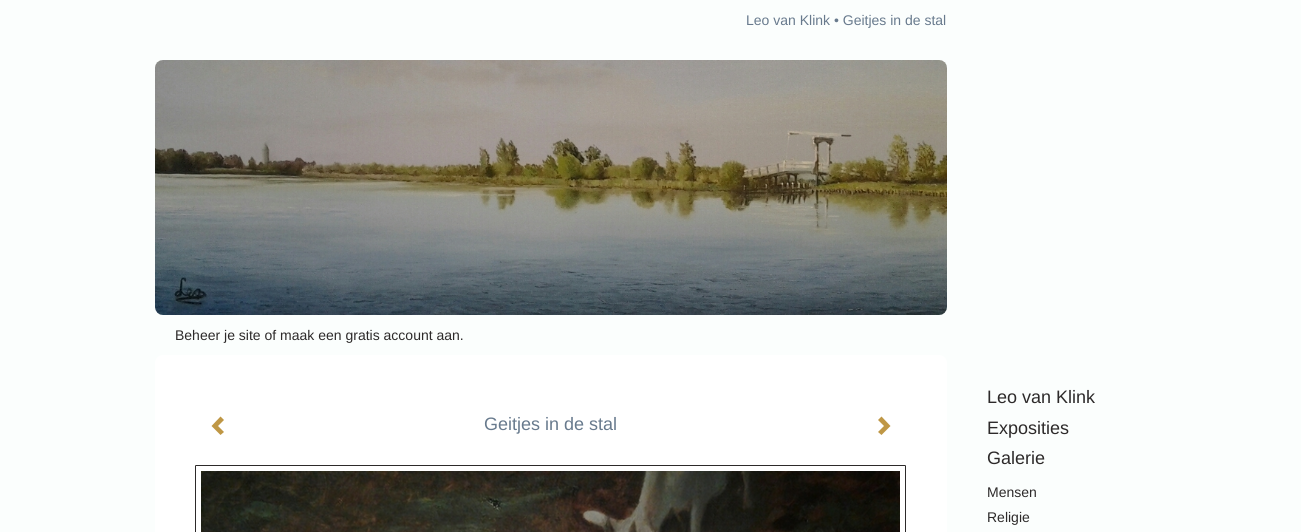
#include <cairo.h>
#include <math.h>
#include <stddef.h>

typedef struct { double x, y; const char *s; } line_t;

static void ink(cairo_t *ctx, unsigned color) {
    cairo_set_source_rgb(ctx, (color >> 16) / 255.0, (color >> 8 & 255) / 255.0, (color & 255) / 255.0);
}

static void round_path(cairo_t *ctx, double x, double y, double w, double h, double r) {
    cairo_new_sub_path(ctx);
    cairo_arc(ctx, x + w - r, y + h - r, r, 0, M_PI / 2);
    cairo_arc(ctx, x + r, y + h - r, r, M_PI / 2, M_PI);
    cairo_arc(ctx, x + r, y + r, r, M_PI, 1.5 * M_PI);
    cairo_arc(ctx, x + w - r, y + r, r, 1.5 * M_PI, 2 * M_PI);
    cairo_close_path(ctx);
}

static void paste(cairo_t *ctx, const char *path, double x, double y, double w, double h) {
    cairo_surface_t *image = cairo_image_surface_create_from_png(path);
    cairo_save(ctx);
    cairo_set_source_surface(ctx, image, x, y);
    cairo_rectangle(ctx, x, y, w, h);
    cairo_fill(ctx);
    cairo_restore(ctx);
    cairo_surface_destroy(image);
}

int main(void) {
    cairo_surface_t *surface = cairo_image_surface_create(CAIRO_FORMAT_RGB24, 1301, 532);
    cairo_t *ctx = cairo_create(surface);
    cairo_font_options_t *options = cairo_font_options_create();
    cairo_font_options_set_hint_metrics(options, CAIRO_HINT_METRICS_OFF);
    cairo_font_options_set_hint_style(options, CAIRO_HINT_STYLE_NONE);
    cairo_set_font_options(ctx, options);
    cairo_set_miter_limit(ctx, 4);
    ink(ctx, 0xFBFEFD);
    cairo_paint(ctx);
    cairo_select_font_face(ctx, "Liberation Sans", CAIRO_FONT_SLANT_NORMAL, CAIRO_FONT_WEIGHT_NORMAL);
    cairo_set_font_size(ctx, 14);
    ink(ctx, 0x687A8D);
    cairo_move_to(ctx, 746, 25);
    cairo_show_text(ctx, "Leo van Klink • Geitjes in de stal");
    paste(ctx, "media/1.png", 155, 60, 792, 255);
    ink(ctx, 0x2D2A2A);
    cairo_move_to(ctx, 175, 340);
    cairo_show_text(ctx, "Beheer je site of maak een gratis account aan.");
    ink(ctx, 0xFFFFFF);
    round_path(ctx, 155, 355, 792, 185, 8);
    cairo_fill(ctx);
    ink(ctx, 0xBF9745);
    cairo_new_path(ctx);
    cairo_move_to(ctx, 224, 420);
    cairo_line_to(ctx, 218, 426);
    cairo_line_to(ctx, 224, 432);
    cairo_line_to(ctx, 220.5, 435);
    cairo_line_to(ctx, 211.5, 426);
    cairo_line_to(ctx, 220.5, 416.5);
    cairo_close_path(ctx);
    cairo_fill(ctx);
    cairo_set_font_size(ctx, 18);
    ink(ctx, 0x687A8D);
    cairo_move_to(ctx, 484, 430);
    cairo_show_text(ctx, "Geitjes in de stal");
    ink(ctx, 0xBF9745);
    cairo_new_path(ctx);
    cairo_move_to(ctx, 890.5, 426);
    cairo_line_to(ctx, 881.5, 435);
    cairo_line_to(ctx, 878, 432);
    cairo_line_to(ctx, 884, 426);
    cairo_line_to(ctx, 878, 420);
    cairo_line_to(ctx, 881.5, 416.5);
    cairo_close_path(ctx);
    cairo_fill(ctx);
    round_path(ctx, 195.5, 465.5, 710, 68, 0.5);
    ink(ctx, 0x2D2A2A);
    cairo_set_line_width(ctx, 1);
    cairo_stroke(ctx);
    paste(ctx, "media/2.png", 201, 471, 699, 61);
    {
        static const line_t items[] = {
            {987, 403, "Leo van Klink"},
            {987, 434, "Exposities"},
            {987, 464, "Galerie"},
        };
        for (size_t i = 0; i < sizeof items / sizeof *items; i++) {
            cairo_move_to(ctx, items[i].x, items[i].y);
            cairo_show_text(ctx, items[i].s);
        }
    }
    cairo_set_font_size(ctx, 14);
    cairo_move_to(ctx, 987, 497);
    cairo_show_text(ctx, "Mensen");
    cairo_move_to(ctx, 987, 522);
    cairo_show_text(ctx, "Religie");
    cairo_surface_write_to_png(surface, "image.png");
    cairo_font_options_destroy(options);
    cairo_destroy(ctx);
    cairo_surface_destroy(surface);
    return 0;
}
